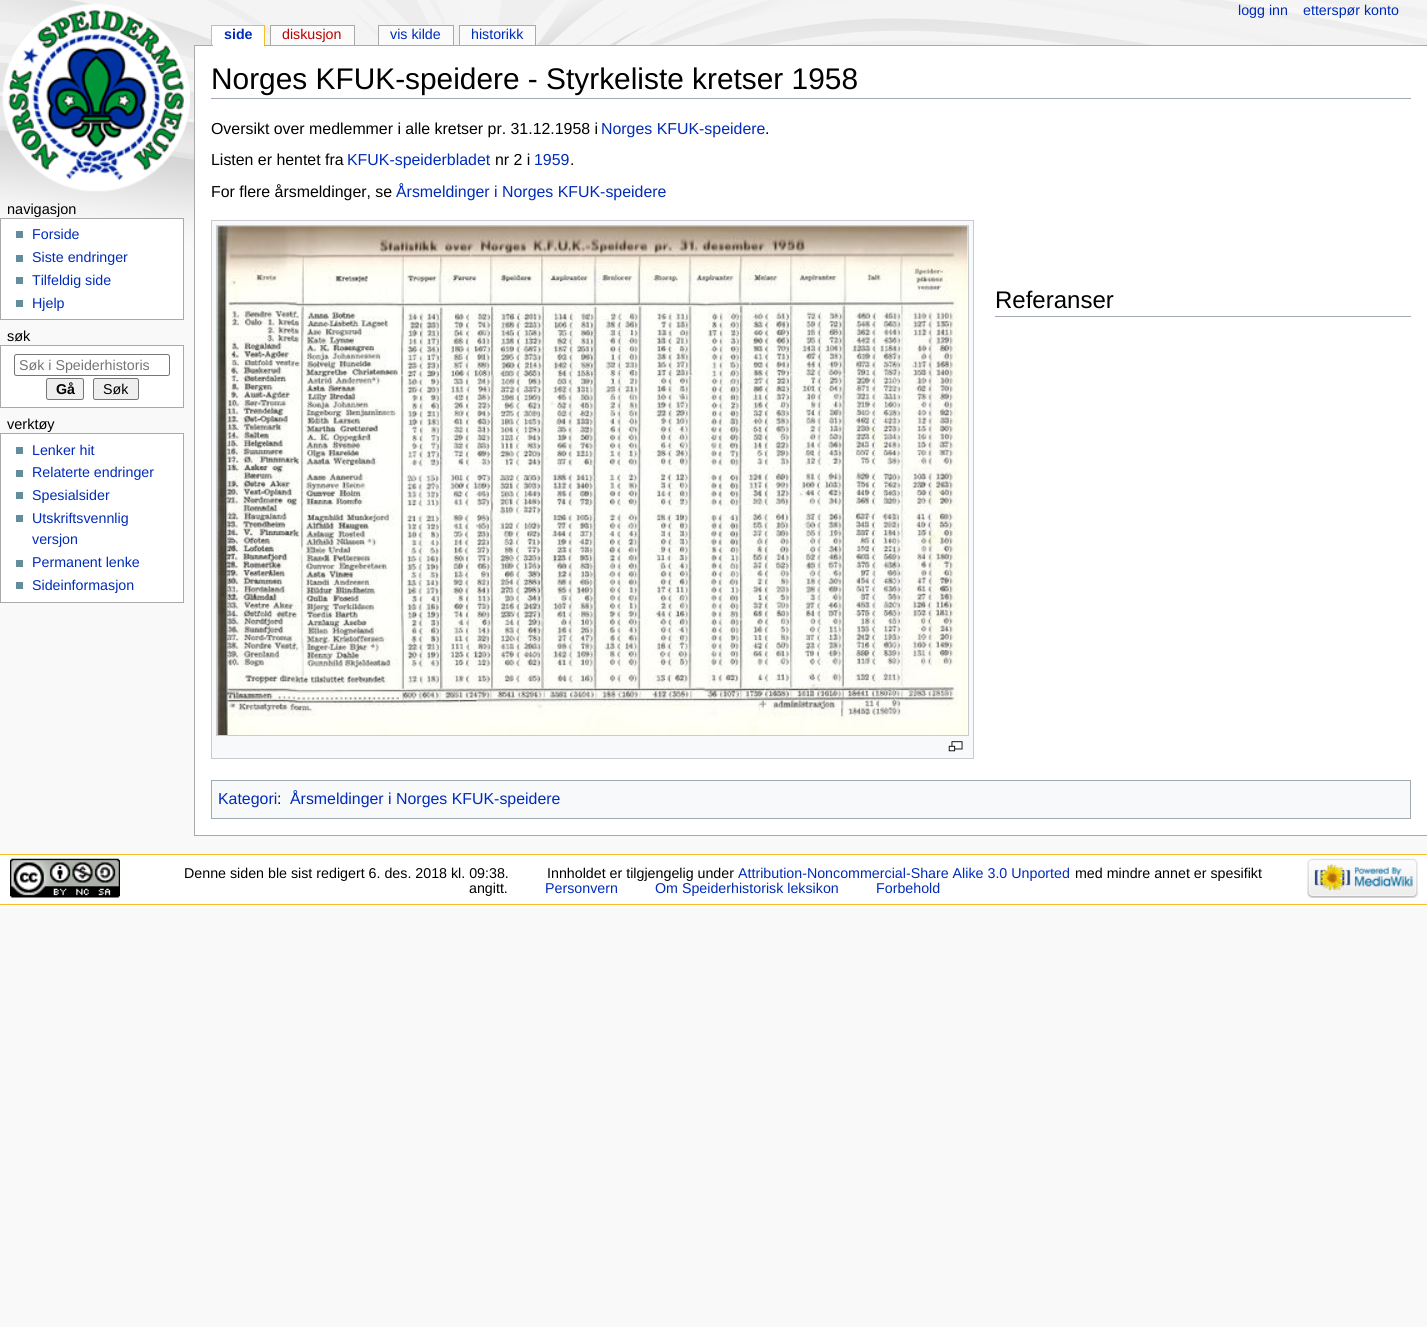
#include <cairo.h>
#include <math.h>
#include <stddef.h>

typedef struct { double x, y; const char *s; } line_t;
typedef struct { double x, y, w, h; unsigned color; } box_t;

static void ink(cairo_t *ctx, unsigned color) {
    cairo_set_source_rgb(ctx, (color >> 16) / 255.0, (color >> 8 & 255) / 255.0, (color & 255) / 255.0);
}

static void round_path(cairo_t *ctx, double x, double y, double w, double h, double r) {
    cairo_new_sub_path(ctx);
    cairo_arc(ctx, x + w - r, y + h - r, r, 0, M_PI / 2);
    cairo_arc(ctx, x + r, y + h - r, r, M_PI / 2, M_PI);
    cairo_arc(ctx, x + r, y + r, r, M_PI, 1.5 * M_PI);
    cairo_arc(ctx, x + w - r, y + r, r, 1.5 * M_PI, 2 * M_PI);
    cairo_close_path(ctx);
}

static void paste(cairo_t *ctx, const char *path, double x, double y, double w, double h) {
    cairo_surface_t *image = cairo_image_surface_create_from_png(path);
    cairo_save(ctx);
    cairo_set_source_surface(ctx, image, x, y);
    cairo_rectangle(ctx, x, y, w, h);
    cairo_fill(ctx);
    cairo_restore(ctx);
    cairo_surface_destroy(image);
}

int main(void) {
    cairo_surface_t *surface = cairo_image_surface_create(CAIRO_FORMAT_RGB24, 1427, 1327);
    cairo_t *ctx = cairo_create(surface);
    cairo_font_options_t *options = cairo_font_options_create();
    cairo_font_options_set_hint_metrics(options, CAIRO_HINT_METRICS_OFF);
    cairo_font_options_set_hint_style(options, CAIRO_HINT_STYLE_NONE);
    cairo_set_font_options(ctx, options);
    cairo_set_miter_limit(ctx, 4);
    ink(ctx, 0xF9F9F9);
    cairo_paint(ctx);
    paste(ctx, "media/1.png", 0, 0, 1427, 263);
    paste(ctx, "media/2.png", 2, 3, 188, 189);
    cairo_select_font_face(ctx, "Liberation Sans", CAIRO_FONT_SLANT_NORMAL, CAIRO_FONT_WEIGHT_NORMAL);
    cairo_set_font_size(ctx, 14.25);
    ink(ctx, 0x002BB8);
    cairo_move_to(ctx, 1238, 15);
    cairo_show_text(ctx, "logg inn");
    cairo_move_to(ctx, 1303, 15);
    cairo_show_text(ctx, "etterspør konto");
    ink(ctx, 0xAAAAAA);
    cairo_rectangle(ctx, 194, 45, 1233, 1);
    cairo_fill(ctx);
    ink(ctx, 0xFFFFFF);
    cairo_rectangle(ctx, 213, 26, 51, 20);
    cairo_fill(ctx);
    cairo_select_font_face(ctx, "Liberation Sans", CAIRO_FONT_SLANT_NORMAL, CAIRO_FONT_WEIGHT_BOLD);
    ink(ctx, 0x002BB8);
    cairo_move_to(ctx, 224, 39);
    cairo_show_text(ctx, "side");
    {
        static const box_t items[] = {
            {212, 26, 1, 19, 0xFFFFFF},
            {211, 25, 54, 1, 0xFABD23},
            {264, 25, 1, 20, 0xFABD23},
            {211, 25, 1, 20, 0xFABD23},
            {271, 26, 83, 19, 0xFBFBFB},
        };
        for (size_t i = 0; i < sizeof items / sizeof *items; i++) {
            ink(ctx, items[i].color);
            cairo_rectangle(ctx, items[i].x, items[i].y, items[i].w, items[i].h);
            cairo_fill(ctx);
        }
    }
    cairo_select_font_face(ctx, "Liberation Sans", CAIRO_FONT_SLANT_NORMAL, CAIRO_FONT_WEIGHT_NORMAL);
    ink(ctx, 0xBA0000);
    cairo_move_to(ctx, 282, 39);
    cairo_show_text(ctx, "diskusjon");
    {
        static const box_t items[] = {
            {270, 25, 85, 1, 0xAAAAAA},
            {354, 25, 1, 20, 0xAAAAAA},
            {270, 25, 1, 20, 0xAAAAAA},
            {379, 26, 74, 19, 0xFBFBFB},
        };
        for (size_t i = 0; i < sizeof items / sizeof *items; i++) {
            ink(ctx, items[i].color);
            cairo_rectangle(ctx, items[i].x, items[i].y, items[i].w, items[i].h);
            cairo_fill(ctx);
        }
    }
    ink(ctx, 0x002BB8);
    cairo_move_to(ctx, 390, 39);
    cairo_show_text(ctx, "vis kilde");
    {
        static const box_t items[] = {
            {378, 25, 76, 1, 0xAAAAAA},
            {453, 25, 1, 20, 0xAAAAAA},
            {378, 25, 1, 20, 0xAAAAAA},
            {460, 26, 75, 19, 0xFBFBFB},
        };
        for (size_t i = 0; i < sizeof items / sizeof *items; i++) {
            ink(ctx, items[i].color);
            cairo_rectangle(ctx, items[i].x, items[i].y, items[i].w, items[i].h);
            cairo_fill(ctx);
        }
    }
    ink(ctx, 0x002BB8);
    cairo_move_to(ctx, 471, 39);
    cairo_show_text(ctx, "historikk");
    {
        static const box_t items[] = {
            {459, 25, 77, 1, 0xAAAAAA},
            {535, 25, 1, 20, 0xAAAAAA},
            {459, 25, 1, 20, 0xAAAAAA},
        };
        for (size_t i = 0; i < sizeof items / sizeof *items; i++) {
            ink(ctx, items[i].color);
            cairo_rectangle(ctx, items[i].x, items[i].y, items[i].w, items[i].h);
            cairo_fill(ctx);
        }
    }
    cairo_set_font_size(ctx, 14.5);
    ink(ctx, 0x000000);
    cairo_move_to(ctx, 7, 214);
    cairo_show_text(ctx, "navigasjon");
    ink(ctx, 0xFFFFFF);
    cairo_rectangle(ctx, 0.5, 218.5, 183, 101);
    cairo_fill_preserve(ctx);
    ink(ctx, 0xAAAAAA);
    cairo_set_line_width(ctx, 1);
    cairo_stroke(ctx);
    ink(ctx, 0x638C9C);
    cairo_rectangle(ctx, 16, 231, 7, 7);
    cairo_fill(ctx);
    cairo_set_font_size(ctx, 14.25);
    ink(ctx, 0x002BB8);
    cairo_move_to(ctx, 32, 239);
    cairo_show_text(ctx, "Forside");
    ink(ctx, 0x638C9C);
    cairo_rectangle(ctx, 16, 255, 7, 7);
    cairo_fill(ctx);
    ink(ctx, 0x002BB8);
    cairo_move_to(ctx, 32, 262);
    cairo_show_text(ctx, "Siste endringer");
    ink(ctx, 0x638C9C);
    cairo_rectangle(ctx, 16, 277, 7, 7);
    cairo_fill(ctx);
    ink(ctx, 0x002BB8);
    cairo_move_to(ctx, 32, 285);
    cairo_show_text(ctx, "Tilfeldig side");
    ink(ctx, 0x638C9C);
    cairo_rectangle(ctx, 16, 300, 7, 7);
    cairo_fill(ctx);
    ink(ctx, 0x002BB8);
    cairo_move_to(ctx, 32, 308);
    cairo_show_text(ctx, "Hjelp");
    cairo_set_font_size(ctx, 14.5);
    ink(ctx, 0x000000);
    cairo_move_to(ctx, 7, 341);
    cairo_show_text(ctx, "søk");
    ink(ctx, 0xFFFFFF);
    cairo_rectangle(ctx, 0.5, 345.5, 183, 62);
    cairo_fill_preserve(ctx);
    ink(ctx, 0xAAAAAA);
    cairo_stroke(ctx);
    round_path(ctx, 14.5, 354.5, 155, 21, 2);
    ink(ctx, 0x767676);
    cairo_stroke(ctx);
    cairo_set_font_size(ctx, 14.25);
    ink(ctx, 0x757575);
    cairo_move_to(ctx, 19, 370);
    cairo_show_text(ctx, "Søk i Speiderhistoris");
    ink(ctx, 0xEFEFEF);
    round_path(ctx, 46.5, 378.5, 37, 21, 2);
    cairo_fill_preserve(ctx);
    ink(ctx, 0x767676);
    cairo_stroke(ctx);
    cairo_select_font_face(ctx, "Liberation Sans", CAIRO_FONT_SLANT_NORMAL, CAIRO_FONT_WEIGHT_BOLD);
    ink(ctx, 0x000000);
    cairo_move_to(ctx, 56, 394);
    cairo_show_text(ctx, "Gå");
    ink(ctx, 0xEFEFEF);
    round_path(ctx, 93.5, 378.5, 45, 21, 2);
    cairo_fill_preserve(ctx);
    ink(ctx, 0x767676);
    cairo_stroke(ctx);
    cairo_select_font_face(ctx, "Liberation Sans", CAIRO_FONT_SLANT_NORMAL, CAIRO_FONT_WEIGHT_NORMAL);
    ink(ctx, 0x000000);
    cairo_move_to(ctx, 103, 394);
    cairo_show_text(ctx, "Søk");
    cairo_set_font_size(ctx, 14.5);
    cairo_move_to(ctx, 7, 429);
    cairo_show_text(ctx, "verktøy");
    ink(ctx, 0xFFFFFF);
    cairo_rectangle(ctx, 0.5, 433.5, 183, 169);
    cairo_fill_preserve(ctx);
    ink(ctx, 0xAAAAAA);
    cairo_stroke(ctx);
    ink(ctx, 0x638C9C);
    cairo_rectangle(ctx, 16, 447, 7, 7);
    cairo_fill(ctx);
    cairo_set_font_size(ctx, 14.25);
    ink(ctx, 0x002BB8);
    cairo_move_to(ctx, 32, 455);
    cairo_show_text(ctx, "Lenker hit");
    ink(ctx, 0x638C9C);
    cairo_rectangle(ctx, 16, 470, 7, 7);
    cairo_fill(ctx);
    ink(ctx, 0x002BB8);
    cairo_move_to(ctx, 32, 477);
    cairo_show_text(ctx, "Relaterte endringer");
    ink(ctx, 0x638C9C);
    cairo_rectangle(ctx, 16, 492, 7, 7);
    cairo_fill(ctx);
    ink(ctx, 0x002BB8);
    cairo_move_to(ctx, 32, 500);
    cairo_show_text(ctx, "Spesialsider");
    ink(ctx, 0x638C9C);
    cairo_rectangle(ctx, 16, 515, 7, 7);
    cairo_fill(ctx);
    ink(ctx, 0x002BB8);
    cairo_move_to(ctx, 32, 523);
    cairo_show_text(ctx, "Utskriftsvennlig");
    cairo_move_to(ctx, 32, 544);
    cairo_show_text(ctx, "versjon");
    ink(ctx, 0x638C9C);
    cairo_rectangle(ctx, 16, 560, 7, 7);
    cairo_fill(ctx);
    ink(ctx, 0x002BB8);
    cairo_move_to(ctx, 32, 567);
    cairo_show_text(ctx, "Permanent lenke");
    ink(ctx, 0x638C9C);
    cairo_rectangle(ctx, 16, 582, 7, 7);
    cairo_fill(ctx);
    ink(ctx, 0x002BB8);
    cairo_move_to(ctx, 32, 590);
    cairo_show_text(ctx, "Sideinformasjon");
    {
        static const box_t items[] = {
            {195, 46, 1232, 789, 0xFFFFFF},
            {194, 835, 1233, 1, 0xAAAAAA},
            {194, 45, 1, 791, 0xAAAAAA},
            {211, 98, 1200, 1, 0xA2A9B1},
        };
        for (size_t i = 0; i < sizeof items / sizeof *items; i++) {
            ink(ctx, items[i].color);
            cairo_rectangle(ctx, items[i].x, items[i].y, items[i].w, items[i].h);
            cairo_fill(ctx);
        }
    }
    cairo_set_font_size(ctx, 29.85);
    ink(ctx, 0x000000);
    cairo_move_to(ctx, 211, 89);
    cairo_show_text(ctx, "Norges KFUK-speidere - Styrkeliste kretser 1958");
    cairo_set_font_size(ctx, 15.9);
    cairo_move_to(ctx, 211, 134);
    cairo_show_text(ctx, "Oversikt over medlemmer i alle kretser pr. 31.12.1958 i");
    ink(ctx, 0x002BB8);
    cairo_move_to(ctx, 601, 134);
    cairo_show_text(ctx, "Norges KFUK-speidere");
    ink(ctx, 0x000000);
    cairo_move_to(ctx, 765, 134);
    cairo_show_text(ctx, ".");
    cairo_move_to(ctx, 211, 165);
    cairo_show_text(ctx, "Listen er hentet fra");
    ink(ctx, 0x002BB8);
    cairo_move_to(ctx, 347, 165);
    cairo_show_text(ctx, "KFUK-speiderbladet");
    ink(ctx, 0x000000);
    cairo_move_to(ctx, 495, 165);
    cairo_show_text(ctx, "nr 2 i");
    ink(ctx, 0x002BB8);
    cairo_move_to(ctx, 534, 165);
    cairo_show_text(ctx, "1959");
    ink(ctx, 0x000000);
    cairo_move_to(ctx, 570, 165);
    cairo_show_text(ctx, ".");
    cairo_move_to(ctx, 211, 197);
    cairo_show_text(ctx, "For flere årsmeldinger, se");
    ink(ctx, 0x002BB8);
    cairo_move_to(ctx, 396, 197);
    cairo_show_text(ctx, "Årsmeldinger i Norges KFUK-speidere");
    ink(ctx, 0xF8F9FA);
    cairo_rectangle(ctx, 211.5, 220.5, 762, 538);
    cairo_fill_preserve(ctx);
    ink(ctx, 0xC8CCD1);
    cairo_stroke(ctx);
    ink(ctx, 0xFFFFFF);
    cairo_rectangle(ctx, 216.5, 225.5, 752, 510);
    cairo_fill_preserve(ctx);
    ink(ctx, 0xC8CCD1);
    cairo_stroke(ctx);
    paste(ctx, "media/3.png", 217, 226, 751, 509);
    paste(ctx, "media/4.png", 948, 741, 15, 11);
    ink(ctx, 0xA2A9B1);
    cairo_rectangle(ctx, 995, 316, 416, 1);
    cairo_fill(ctx);
    cairo_set_font_size(ctx, 24);
    ink(ctx, 0x000000);
    cairo_move_to(ctx, 995, 308);
    cairo_show_text(ctx, "Referanser");
    ink(ctx, 0xF8F9FA);
    cairo_rectangle(ctx, 211.5, 780.5, 1199, 38);
    cairo_fill_preserve(ctx);
    ink(ctx, 0xA2A9B1);
    cairo_stroke(ctx);
    cairo_set_font_size(ctx, 15.9);
    ink(ctx, 0x002BB8);
    cairo_move_to(ctx, 218, 804);
    cairo_show_text(ctx, "Kategori");
    ink(ctx, 0x000000);
    cairo_move_to(ctx, 277, 804);
    cairo_show_text(ctx, ":");
    ink(ctx, 0x002BB8);
    cairo_move_to(ctx, 290, 804);
    cairo_show_text(ctx, "Årsmeldinger i Norges KFUK-speidere");
    {
        static const box_t items[] = {
            {0, 855, 1427, 49, 0xFFFFFF},
            {0, 854, 1427, 1, 0xFABD23},
            {0, 904, 1427, 1, 0xFABD23},
        };
        for (size_t i = 0; i < sizeof items / sizeof *items; i++) {
            ink(ctx, items[i].color);
            cairo_rectangle(ctx, items[i].x, items[i].y, items[i].w, items[i].h);
            cairo_fill(ctx);
        }
    }
    paste(ctx, "media/5.png", 10, 858, 110, 40);
    cairo_set_font_size(ctx, 14.25);
    ink(ctx, 0x000000);
    cairo_move_to(ctx, 184, 878);
    cairo_show_text(ctx, "Denne siden ble sist redigert 6. des. 2018 kl. 09:38.");
    cairo_move_to(ctx, 547, 878);
    cairo_show_text(ctx, "Innholdet er tilgjengelig under");
    ink(ctx, 0x002BB8);
    cairo_move_to(ctx, 738, 878);
    cairo_show_text(ctx, "Attribution-Noncommercial-Share Alike 3.0 Unported");
    ink(ctx, 0x000000);
    cairo_move_to(ctx, 1075, 878);
    cairo_show_text(ctx, "med mindre annet er spesifikt");
    cairo_move_to(ctx, 469, 893);
    cairo_show_text(ctx, "angitt.");
    ink(ctx, 0x002BB8);
    {
        static const line_t items[] = {
            {545, 893, "Personvern"},
            {655, 893, "Om Speiderhistorisk leksikon"},
            {876, 893, "Forbehold"},
        };
        for (size_t i = 0; i < sizeof items / sizeof *items; i++) {
            cairo_move_to(ctx, items[i].x, items[i].y);
            cairo_show_text(ctx, items[i].s);
        }
    }
    paste(ctx, "media/6.png", 1307, 858, 111, 40);
    cairo_surface_write_to_png(surface, "image.png");
    cairo_font_options_destroy(options);
    cairo_destroy(ctx);
    cairo_surface_destroy(surface);
    return 0;
}
